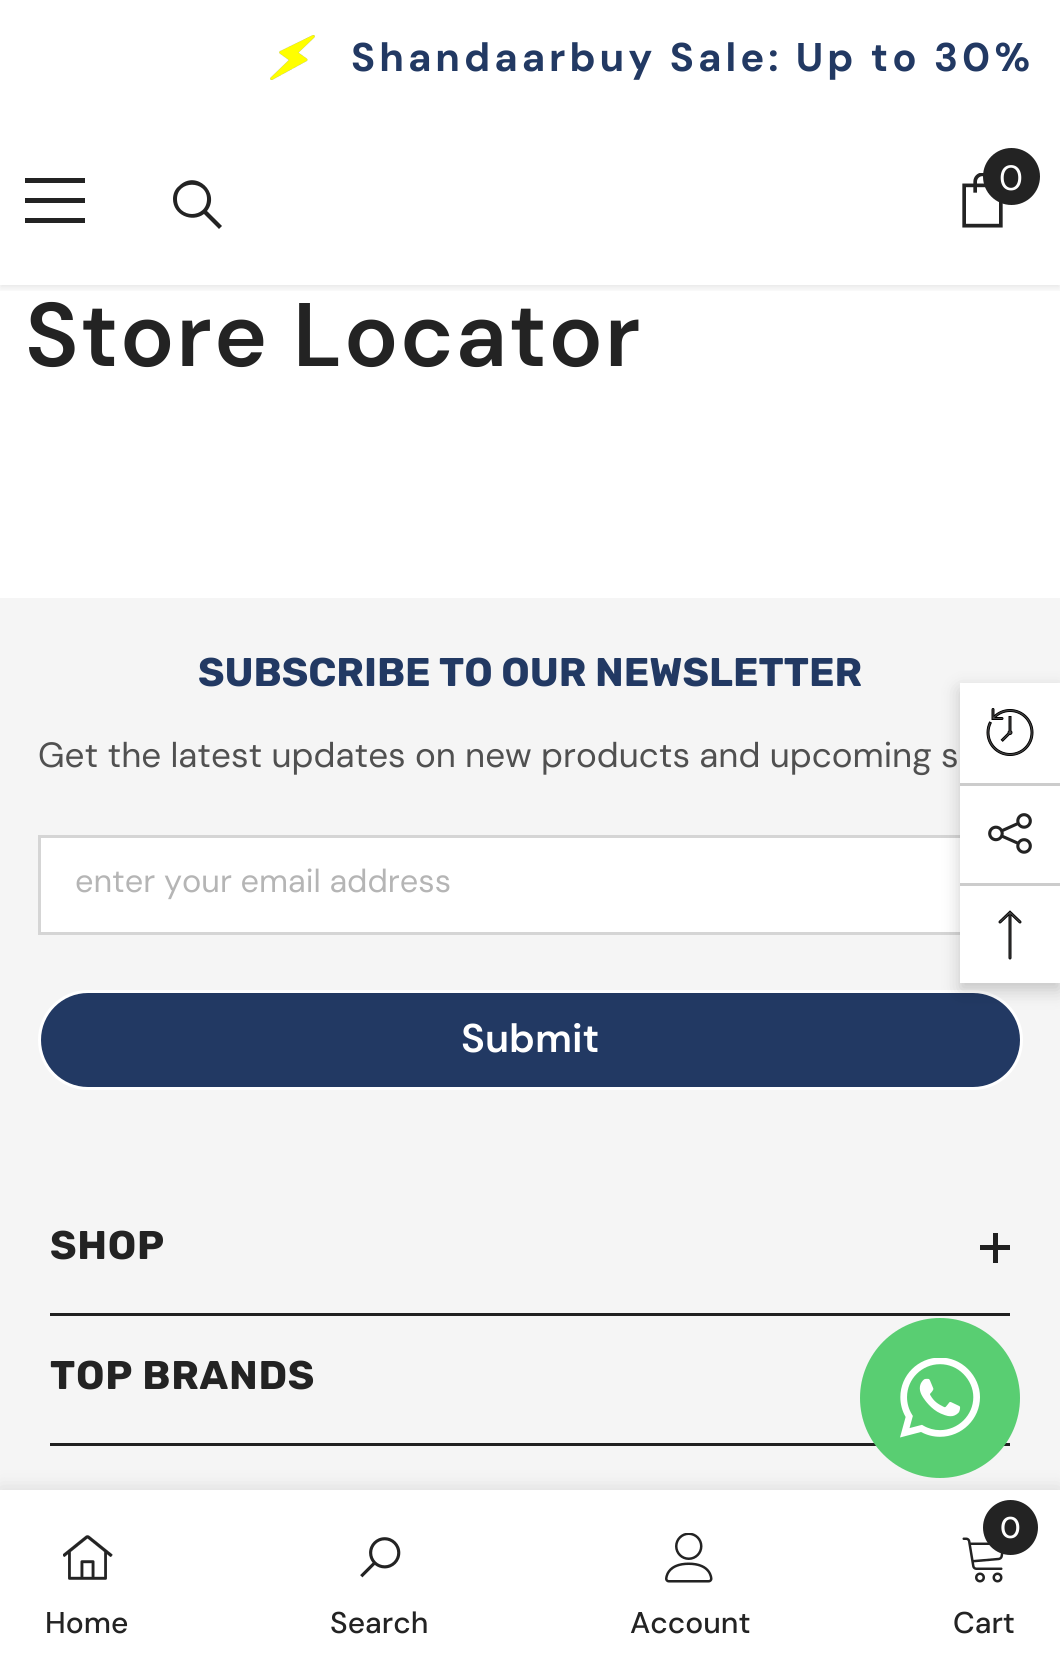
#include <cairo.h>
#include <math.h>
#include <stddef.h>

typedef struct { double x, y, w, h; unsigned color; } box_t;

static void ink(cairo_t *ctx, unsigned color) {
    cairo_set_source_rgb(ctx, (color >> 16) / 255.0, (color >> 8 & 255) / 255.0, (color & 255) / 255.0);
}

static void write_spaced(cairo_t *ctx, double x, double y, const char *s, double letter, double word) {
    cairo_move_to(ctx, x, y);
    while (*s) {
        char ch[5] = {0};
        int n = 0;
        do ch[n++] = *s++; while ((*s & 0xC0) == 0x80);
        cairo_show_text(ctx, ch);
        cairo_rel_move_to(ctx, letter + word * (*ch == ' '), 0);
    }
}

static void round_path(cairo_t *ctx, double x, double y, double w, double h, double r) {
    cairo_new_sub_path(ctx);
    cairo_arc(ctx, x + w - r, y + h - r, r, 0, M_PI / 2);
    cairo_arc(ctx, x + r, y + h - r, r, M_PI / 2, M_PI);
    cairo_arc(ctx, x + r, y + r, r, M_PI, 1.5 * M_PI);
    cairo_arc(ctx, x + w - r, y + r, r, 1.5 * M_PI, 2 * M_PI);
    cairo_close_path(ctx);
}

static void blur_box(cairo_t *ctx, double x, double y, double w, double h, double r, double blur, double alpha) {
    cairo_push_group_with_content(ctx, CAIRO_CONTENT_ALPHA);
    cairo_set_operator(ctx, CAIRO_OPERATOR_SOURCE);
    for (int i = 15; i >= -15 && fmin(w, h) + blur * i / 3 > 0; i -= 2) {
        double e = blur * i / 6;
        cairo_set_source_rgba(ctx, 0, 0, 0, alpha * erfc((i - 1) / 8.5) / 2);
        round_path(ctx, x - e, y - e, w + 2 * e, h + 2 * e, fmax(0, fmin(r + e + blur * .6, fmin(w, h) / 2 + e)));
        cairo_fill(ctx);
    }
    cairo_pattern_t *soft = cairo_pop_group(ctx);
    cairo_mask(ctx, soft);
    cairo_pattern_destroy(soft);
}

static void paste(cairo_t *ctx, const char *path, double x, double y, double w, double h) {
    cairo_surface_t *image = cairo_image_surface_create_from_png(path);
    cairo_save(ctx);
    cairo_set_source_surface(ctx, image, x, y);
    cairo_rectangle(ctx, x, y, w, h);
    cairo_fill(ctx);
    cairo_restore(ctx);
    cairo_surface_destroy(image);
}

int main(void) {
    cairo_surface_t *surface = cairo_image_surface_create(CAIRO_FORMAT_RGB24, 1060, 1665);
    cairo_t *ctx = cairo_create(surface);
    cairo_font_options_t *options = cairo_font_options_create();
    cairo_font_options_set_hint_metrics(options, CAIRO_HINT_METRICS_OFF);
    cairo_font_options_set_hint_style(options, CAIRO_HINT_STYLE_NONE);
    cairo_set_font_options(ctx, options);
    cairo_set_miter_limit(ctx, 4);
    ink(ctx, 0xFFFFFF);
    cairo_paint(ctx);
    paste(ctx, "media/1.png", 270, 35, 45, 45);
    cairo_select_font_face(ctx, "DM Sans", CAIRO_FONT_SLANT_NORMAL, CAIRO_FONT_WEIGHT_BOLD);
    cairo_set_font_size(ctx, 40);
    ink(ctx, 0x223963);
    write_spaced(ctx, 351, 71, "Shandaarbuy Sale: Up to 30%", 4, 0);
    cairo_save(ctx);
    cairo_rectangle(ctx, 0, 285, 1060, 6);
    cairo_clip(ctx);
    ink(ctx, 0x000000);
    blur_box(ctx, 0, 118, 1060, 170, 0, 4, 0.1);
    cairo_restore(ctx);
    {
        static const box_t items[] = {
            {25, 198, 60, 5, 0x232323},
            {25, 178, 60, 5, 0x232323},
            {25, 218, 60, 5, 0x232323},
        };
        for (size_t i = 0; i < sizeof items / sizeof *items; i++) {
            ink(ctx, items[i].color);
            cairo_rectangle(ctx, items[i].x, items[i].y, items[i].w, items[i].h);
            cairo_fill(ctx);
        }
    }
    cairo_new_path(ctx);
    cairo_move_to(ctx, 173, 199);
    cairo_curve_to(ctx, 173, 215, 192, 223, 204, 214);
    cairo_line_to(ctx, 219, 229);
    cairo_line_to(ctx, 222, 226);
    cairo_line_to(ctx, 207, 211);
    cairo_curve_to(ctx, 221, 193, 196, 169, 179, 186);
    cairo_curve_to(ctx, 175, 189, 173, 194, 173, 199);
    cairo_close_path(ctx);
    cairo_move_to(ctx, 177, 199);
    cairo_curve_to(ctx, 177, 180, 207, 180, 207, 199);
    cairo_curve_to(ctx, 207, 219, 177, 219, 177, 199);
    cairo_close_path(ctx);
    cairo_fill(ctx);
    paste(ctx, "media/2.png", 962, 173, 41, 55);
    cairo_arc(ctx, 1011.5, 176.5, 28.5, 0, 2 * M_PI);
    cairo_fill(ctx);
    cairo_select_font_face(ctx, "DM Sans", CAIRO_FONT_SLANT_NORMAL, CAIRO_FONT_WEIGHT_NORMAL);
    cairo_set_font_size(ctx, 35);
    ink(ctx, 0xFFFFFF);
    cairo_move_to(ctx, 999, 190);
    cairo_show_text(ctx, "0");
    cairo_select_font_face(ctx, "DM Sans SemiBold", CAIRO_FONT_SLANT_NORMAL, CAIRO_FONT_WEIGHT_NORMAL);
    cairo_set_font_size(ctx, 90);
    ink(ctx, 0x232323);
    write_spaced(ctx, 25, 366, "Store Locator", 1.75, 0);
    ink(ctx, 0xF5F5F5);
    cairo_rectangle(ctx, 0, 598, 1060, 892);
    cairo_fill(ctx);
    cairo_select_font_face(ctx, "Rubik", CAIRO_FONT_SLANT_NORMAL, CAIRO_FONT_WEIGHT_BOLD);
    cairo_set_font_size(ctx, 40);
    ink(ctx, 0x223963);
    cairo_move_to(ctx, 198, 686);
    cairo_show_text(ctx, "SUBSCRIBE TO OUR NEWSLETTER");
    cairo_select_font_face(ctx, "DM Sans", CAIRO_FONT_SLANT_NORMAL, CAIRO_FONT_WEIGHT_NORMAL);
    cairo_set_font_size(ctx, 35);
    ink(ctx, 0x505050);
    cairo_move_to(ctx, 38, 767);
    cairo_show_text(ctx, "Get the latest updates on new products and upcoming s");
    ink(ctx, 0xFFFFFF);
    cairo_rectangle(ctx, 41, 838, 919, 94);
    cairo_fill(ctx);
    cairo_rectangle(ctx, 39.5, 836.5, 982, 97);
    ink(ctx, 0xD5D5D5);
    cairo_set_line_width(ctx, 3);
    cairo_stroke(ctx);
    cairo_set_font_size(ctx, 32.5);
    ink(ctx, 0xB5B5B5);
    cairo_move_to(ctx, 75, 892);
    cairo_show_text(ctx, "enter your email address");
    ink(ctx, 0x223963);
    round_path(ctx, 39.5, 991.5, 982, 97, 48.5);
    cairo_fill_preserve(ctx);
    ink(ctx, 0xFFFFFF);
    cairo_stroke(ctx);
    cairo_select_font_face(ctx, "DM Sans SemiBold", CAIRO_FONT_SLANT_NORMAL, CAIRO_FONT_WEIGHT_NORMAL);
    cairo_set_font_size(ctx, 40);
    cairo_move_to(ctx, 461, 1052);
    cairo_show_text(ctx, "Submit");
    ink(ctx, 0x202020);
    cairo_rectangle(ctx, 50, 1313, 960, 3);
    cairo_fill(ctx);
    cairo_select_font_face(ctx, "Rubik", CAIRO_FONT_SLANT_NORMAL, CAIRO_FONT_WEIGHT_BOLD);
    ink(ctx, 0x232323);
    write_spaced(ctx, 50, 1259, "SHOP", 0.75, 0);
    {
        static const box_t items[] = {
            {993, 1233, 5, 30, 0x202020},
            {980, 1245, 30, 5, 0x202020},
            {50, 1443, 960, 3, 0x202020},
        };
        for (size_t i = 0; i < sizeof items / sizeof *items; i++) {
            ink(ctx, items[i].color);
            cairo_rectangle(ctx, items[i].x, items[i].y, items[i].w, items[i].h);
            cairo_fill(ctx);
        }
    }
    ink(ctx, 0x232323);
    write_spaced(ctx, 50, 1389, "TOP BRANDS", 0.75, 0);
    ink(ctx, 0x000000);
    blur_box(ctx, 0, 1490, 1060, 175, 0, 11, 0.12);
    ink(ctx, 0xFFFFFF);
    cairo_rectangle(ctx, 0, 1490, 1060, 175);
    cairo_fill(ctx);
    paste(ctx, "media/3.png", 63, 1535, 50, 45);
    cairo_select_font_face(ctx, "DM Sans Medium", CAIRO_FONT_SLANT_NORMAL, CAIRO_FONT_WEIGHT_NORMAL);
    cairo_set_font_size(ctx, 30);
    ink(ctx, 0x232323);
    cairo_move_to(ctx, 45, 1633);
    cairo_show_text(ctx, "Home");
    paste(ctx, "media/4.png", 360, 1537, 41, 41);
    cairo_move_to(ctx, 330, 1633);
    cairo_show_text(ctx, "Search");
    paste(ctx, "media/5.png", 665, 1533, 48, 50);
    cairo_move_to(ctx, 630, 1633);
    cairo_show_text(ctx, "Account");
    paste(ctx, "media/6.png", 962, 1537, 42, 46);
    cairo_arc(ctx, 1010.5, 1527.5, 27.5, 0, 2 * M_PI);
    cairo_fill(ctx);
    ink(ctx, 0xFFFFFF);
    cairo_move_to(ctx, 1000, 1538);
    cairo_show_text(ctx, "0");
    ink(ctx, 0x232323);
    cairo_move_to(ctx, 953, 1633);
    cairo_show_text(ctx, "Cart");
    ink(ctx, 0x000000);
    blur_box(ctx, 960, 690, 100, 300, 0, 9, 0.2);
    ink(ctx, 0xFFFFFF);
    cairo_rectangle(ctx, 960, 683, 100, 300);
    cairo_fill(ctx);
    paste(ctx, "media/7.png", 986, 708, 48, 48);
    ink(ctx, 0xCCCCCC);
    cairo_rectangle(ctx, 960, 783, 100, 3);
    cairo_fill(ctx);
    paste(ctx, "media/8.png", 988, 813, 44, 41);
    cairo_rectangle(ctx, 960, 883, 100, 3);
    cairo_fill(ctx);
    paste(ctx, "media/9.png", 998, 910, 24, 50);
    ink(ctx, 0x59CE72);
    cairo_arc(ctx, 940, 1398, 80, 0, 2 * M_PI);
    cairo_fill(ctx);
    paste(ctx, "media/10.png", 900, 1358, 80, 80);
    cairo_surface_write_to_png(surface, "image.png");
    cairo_font_options_destroy(options);
    cairo_destroy(ctx);
    cairo_surface_destroy(surface);
    return 0;
}
